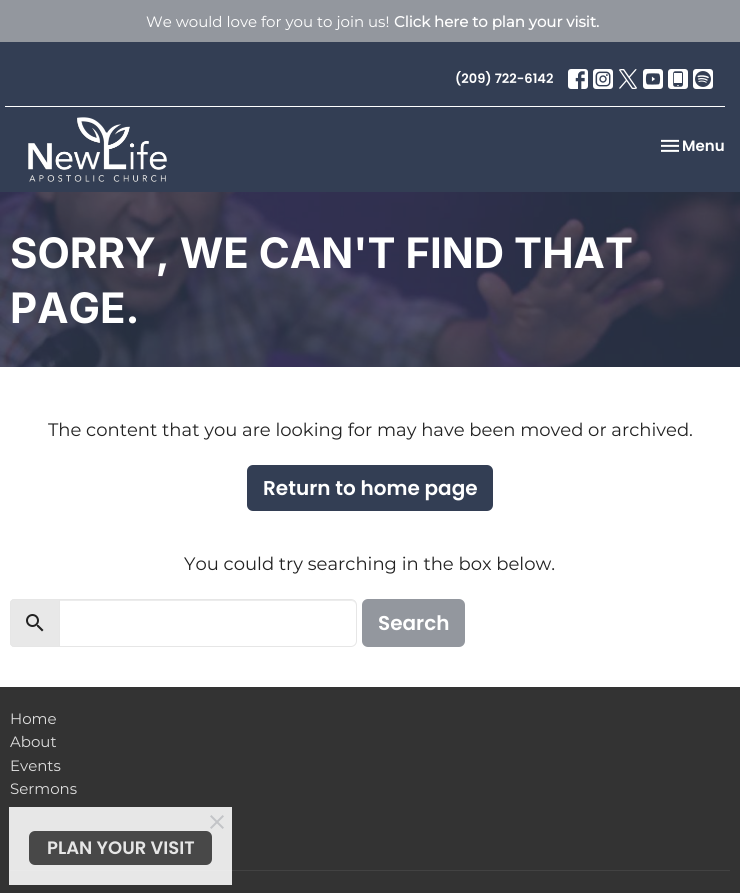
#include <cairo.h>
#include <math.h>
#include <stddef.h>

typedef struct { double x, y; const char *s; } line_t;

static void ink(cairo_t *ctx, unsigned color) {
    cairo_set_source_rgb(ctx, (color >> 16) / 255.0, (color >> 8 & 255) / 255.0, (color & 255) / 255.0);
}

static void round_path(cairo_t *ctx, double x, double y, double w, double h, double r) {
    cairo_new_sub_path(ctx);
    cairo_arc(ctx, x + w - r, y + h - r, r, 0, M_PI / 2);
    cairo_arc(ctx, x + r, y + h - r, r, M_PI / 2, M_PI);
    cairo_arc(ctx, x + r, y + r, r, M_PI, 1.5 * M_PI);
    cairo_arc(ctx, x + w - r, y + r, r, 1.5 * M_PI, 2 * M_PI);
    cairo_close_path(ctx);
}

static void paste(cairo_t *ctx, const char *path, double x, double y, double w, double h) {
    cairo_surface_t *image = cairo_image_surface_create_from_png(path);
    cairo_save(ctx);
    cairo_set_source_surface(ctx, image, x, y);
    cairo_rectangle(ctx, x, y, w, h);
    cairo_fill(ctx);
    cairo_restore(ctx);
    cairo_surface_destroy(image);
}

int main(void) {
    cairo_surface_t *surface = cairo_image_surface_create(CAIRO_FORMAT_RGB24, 740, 893);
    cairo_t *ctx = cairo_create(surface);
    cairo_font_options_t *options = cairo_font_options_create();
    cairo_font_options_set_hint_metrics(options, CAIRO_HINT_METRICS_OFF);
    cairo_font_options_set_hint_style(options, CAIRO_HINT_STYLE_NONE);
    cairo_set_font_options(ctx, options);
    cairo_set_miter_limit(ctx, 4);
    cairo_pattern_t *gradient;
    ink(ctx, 0xFFFFFF);
    cairo_paint(ctx);
    ink(ctx, 0x93979E);
    cairo_rectangle(ctx, 0, 0, 740, 42);
    cairo_fill(ctx);
    cairo_select_font_face(ctx, "Montserrat", CAIRO_FONT_SLANT_NORMAL, CAIRO_FONT_WEIGHT_NORMAL);
    cairo_set_font_size(ctx, 15);
    ink(ctx, 0xFFFFFF);
    cairo_move_to(ctx, 146, 27);
    cairo_show_text(ctx, "We would love for you to join us!");
    cairo_select_font_face(ctx, "Montserrat", CAIRO_FONT_SLANT_NORMAL, CAIRO_FONT_WEIGHT_BOLD);
    cairo_move_to(ctx, 394, 27);
    cairo_show_text(ctx, "Click here to plan your visit.");
    gradient = cairo_pattern_create_linear(370, 192, 370, 42);
    cairo_pattern_add_color_stop_rgba(gradient, 0.05, 0.2, 0.243, 0.329, 0);
    cairo_pattern_add_color_stop_rgba(gradient, 0.9, 0.2, 0.243, 0.329, 1);
    cairo_pattern_add_color_stop_rgba(gradient, 1, 0.2, 0.243, 0.329, 1);
    cairo_set_source(ctx, gradient);
    cairo_pattern_destroy(gradient);
    cairo_rectangle(ctx, 0, 42, 740, 10);
    cairo_fill(ctx);
    ink(ctx, 0x333E54);
    cairo_rectangle(ctx, 0, 52, 740, 140);
    cairo_fill(ctx);
    ink(ctx, 0xFFFFFF);
    cairo_rectangle(ctx, 5, 106, 720, 1);
    cairo_fill(ctx);
    cairo_select_font_face(ctx, "Poppins SemiBold", CAIRO_FONT_SLANT_NORMAL, CAIRO_FONT_WEIGHT_NORMAL);
    cairo_set_font_size(ctx, 13);
    cairo_move_to(ctx, 455, 83);
    cairo_show_text(ctx, "(209) 722-6142");
    paste(ctx, "media/1.png", 568, 69, 20, 20);
    paste(ctx, "media/2.png", 593, 69, 20, 20);
    paste(ctx, "media/3.png", 619, 69, 18, 20);
    paste(ctx, "media/4.png", 643, 69, 20, 20);
    paste(ctx, "media/5.png", 668, 69, 20, 20);
    paste(ctx, "media/6.png", 693, 69, 20, 20);
    paste(ctx, "media/7.png", 28, 117, 139, 65);
    paste(ctx, "media/8.png", 661, 139, 18, 13);
    cairo_set_font_size(ctx, 15);
    cairo_move_to(ctx, 682, 151);
    cairo_show_text(ctx, "Menu");
    paste(ctx, "media/9.png", 0, 192, 740, 175);
    cairo_select_font_face(ctx, "Inter", CAIRO_FONT_SLANT_NORMAL, CAIRO_FONT_WEIGHT_BOLD);
    cairo_set_font_size(ctx, 42);
    cairo_move_to(ctx, 10, 268);
    cairo_show_text(ctx, "SORRY, WE CAN'T FIND THAT");
    cairo_move_to(ctx, 10, 323);
    cairo_show_text(ctx, "PAGE.");
    cairo_select_font_face(ctx, "Montserrat", CAIRO_FONT_SLANT_NORMAL, CAIRO_FONT_WEIGHT_NORMAL);
    cairo_set_font_size(ctx, 18);
    ink(ctx, 0x222222);
    cairo_move_to(ctx, 48, 436);
    cairo_show_text(ctx, "The content that you are looking for may have been moved or archived.");
    ink(ctx, 0x333E54);
    round_path(ctx, 247, 465, 246, 46, 6);
    cairo_fill(ctx);
    cairo_select_font_face(ctx, "Poppins SemiBold", CAIRO_FONT_SLANT_NORMAL, CAIRO_FONT_WEIGHT_NORMAL);
    cairo_set_font_size(ctx, 20);
    ink(ctx, 0xFFFFFF);
    cairo_move_to(ctx, 263, 495);
    cairo_show_text(ctx, "Return to home page");
    cairo_select_font_face(ctx, "Montserrat", CAIRO_FONT_SLANT_NORMAL, CAIRO_FONT_WEIGHT_NORMAL);
    cairo_set_font_size(ctx, 18);
    ink(ctx, 0x222222);
    cairo_move_to(ctx, 184, 570);
    cairo_show_text(ctx, "You could try searching in the box below.");
    ink(ctx, 0xE8E8E8);
    cairo_new_path(ctx);
    cairo_move_to(ctx, 14, 599);
    cairo_line_to(ctx, 59, 599);
    cairo_line_to(ctx, 59, 647);
    cairo_line_to(ctx, 14, 647);
    cairo_curve_to(ctx, 12, 647, 10, 645, 10, 643);
    cairo_line_to(ctx, 10, 603);
    cairo_curve_to(ctx, 10, 601, 12, 599, 14, 599);
    cairo_close_path(ctx);
    cairo_fill(ctx);
    ink(ctx, 0xE6E6E6);
    cairo_set_fill_rule(ctx, CAIRO_FILL_RULE_EVEN_ODD);
    cairo_new_path(ctx);
    cairo_move_to(ctx, 14, 599);
    cairo_line_to(ctx, 59, 599);
    cairo_line_to(ctx, 59, 647);
    cairo_line_to(ctx, 14, 647);
    cairo_curve_to(ctx, 12, 647, 10, 645, 10, 643);
    cairo_line_to(ctx, 10, 603);
    cairo_curve_to(ctx, 10, 601, 12, 599, 14, 599);
    cairo_close_path(ctx);
    cairo_move_to(ctx, 14, 600);
    cairo_line_to(ctx, 59, 600);
    cairo_line_to(ctx, 59, 646);
    cairo_line_to(ctx, 14, 646);
    cairo_curve_to(ctx, 12, 646, 11, 645, 11, 643);
    cairo_line_to(ctx, 11, 603);
    cairo_curve_to(ctx, 11, 601, 12, 600, 14, 600);
    cairo_close_path(ctx);
    cairo_fill(ctx);
    paste(ctx, "media/10.png", 26, 614, 18, 18);
    ink(ctx, 0xECECEC);
    cairo_set_fill_rule(ctx, CAIRO_FILL_RULE_WINDING);
    cairo_new_path(ctx);
    cairo_move_to(ctx, 60, 601);
    cairo_line_to(ctx, 351, 601);
    cairo_curve_to(ctx, 354, 601, 356, 603, 356, 606);
    cairo_line_to(ctx, 356, 605);
    cairo_curve_to(ctx, 356, 602, 354, 600, 351, 600);
    cairo_line_to(ctx, 60, 600);
    cairo_close_path(ctx);
    cairo_fill(ctx);
    cairo_new_path(ctx);
    cairo_move_to(ctx, 59.5, 599.5);
    cairo_line_to(ctx, 351, 599.5);
    cairo_curve_to(ctx, 354, 599.5, 356.5, 602, 356.5, 605);
    cairo_line_to(ctx, 356.5, 641);
    cairo_curve_to(ctx, 356.5, 644, 354, 646.5, 351, 646.5);
    cairo_line_to(ctx, 59.5, 646.5);
    cairo_close_path(ctx);
    ink(ctx, 0xE6E6E6);
    cairo_set_line_width(ctx, 1);
    cairo_stroke(ctx);
    ink(ctx, 0x93979E);
    round_path(ctx, 362, 599, 103, 48, 6);
    cairo_fill(ctx);
    cairo_select_font_face(ctx, "Poppins SemiBold", CAIRO_FONT_SLANT_NORMAL, CAIRO_FONT_WEIGHT_NORMAL);
    cairo_set_font_size(ctx, 20);
    ink(ctx, 0xFFFFFF);
    cairo_move_to(ctx, 378, 630);
    cairo_show_text(ctx, "Search");
    ink(ctx, 0x333333);
    cairo_rectangle(ctx, 0, 687, 740, 206);
    cairo_fill(ctx);
    cairo_select_font_face(ctx, "Montserrat", CAIRO_FONT_SLANT_NORMAL, CAIRO_FONT_WEIGHT_NORMAL);
    cairo_set_font_size(ctx, 15);
    ink(ctx, 0xDEDEDE);
    {
        static const line_t items[] = {
            {10, 724, "Home"},
            {10, 747, "About"},
            {10, 771, "Events"},
            {10, 794, "Sermons"},
        };
        for (size_t i = 0; i < sizeof items / sizeof *items; i++) {
            cairo_move_to(ctx, items[i].x, items[i].y);
            cairo_show_text(ctx, items[i].s);
        }
    }
    ink(ctx, 0x424242);
    cairo_rectangle(ctx, 10, 870, 720, 1);
    cairo_fill(ctx);
    cairo_set_source_rgba(ctx, 1, 1, 1, 0.88);
    cairo_rectangle(ctx, 9, 807, 223, 78);
    cairo_fill(ctx);
    paste(ctx, "media/11.png", 210, 815, 14, 14);
    cairo_set_source_rgba(ctx, 0.2, 0.2, 0.2, 0.88);
    round_path(ctx, 29, 831, 183, 34, 6);
    cairo_fill(ctx);
    cairo_select_font_face(ctx, "Poppins SemiBold", CAIRO_FONT_SLANT_NORMAL, CAIRO_FONT_WEIGHT_NORMAL);
    cairo_set_font_size(ctx, 18);
    ink(ctx, 0xE6E6E6);
    cairo_move_to(ctx, 47, 854);
    cairo_show_text(ctx, "PLAN YOUR VISIT");
    cairo_surface_write_to_png(surface, "image.png");
    cairo_font_options_destroy(options);
    cairo_destroy(ctx);
    cairo_surface_destroy(surface);
    return 0;
}
